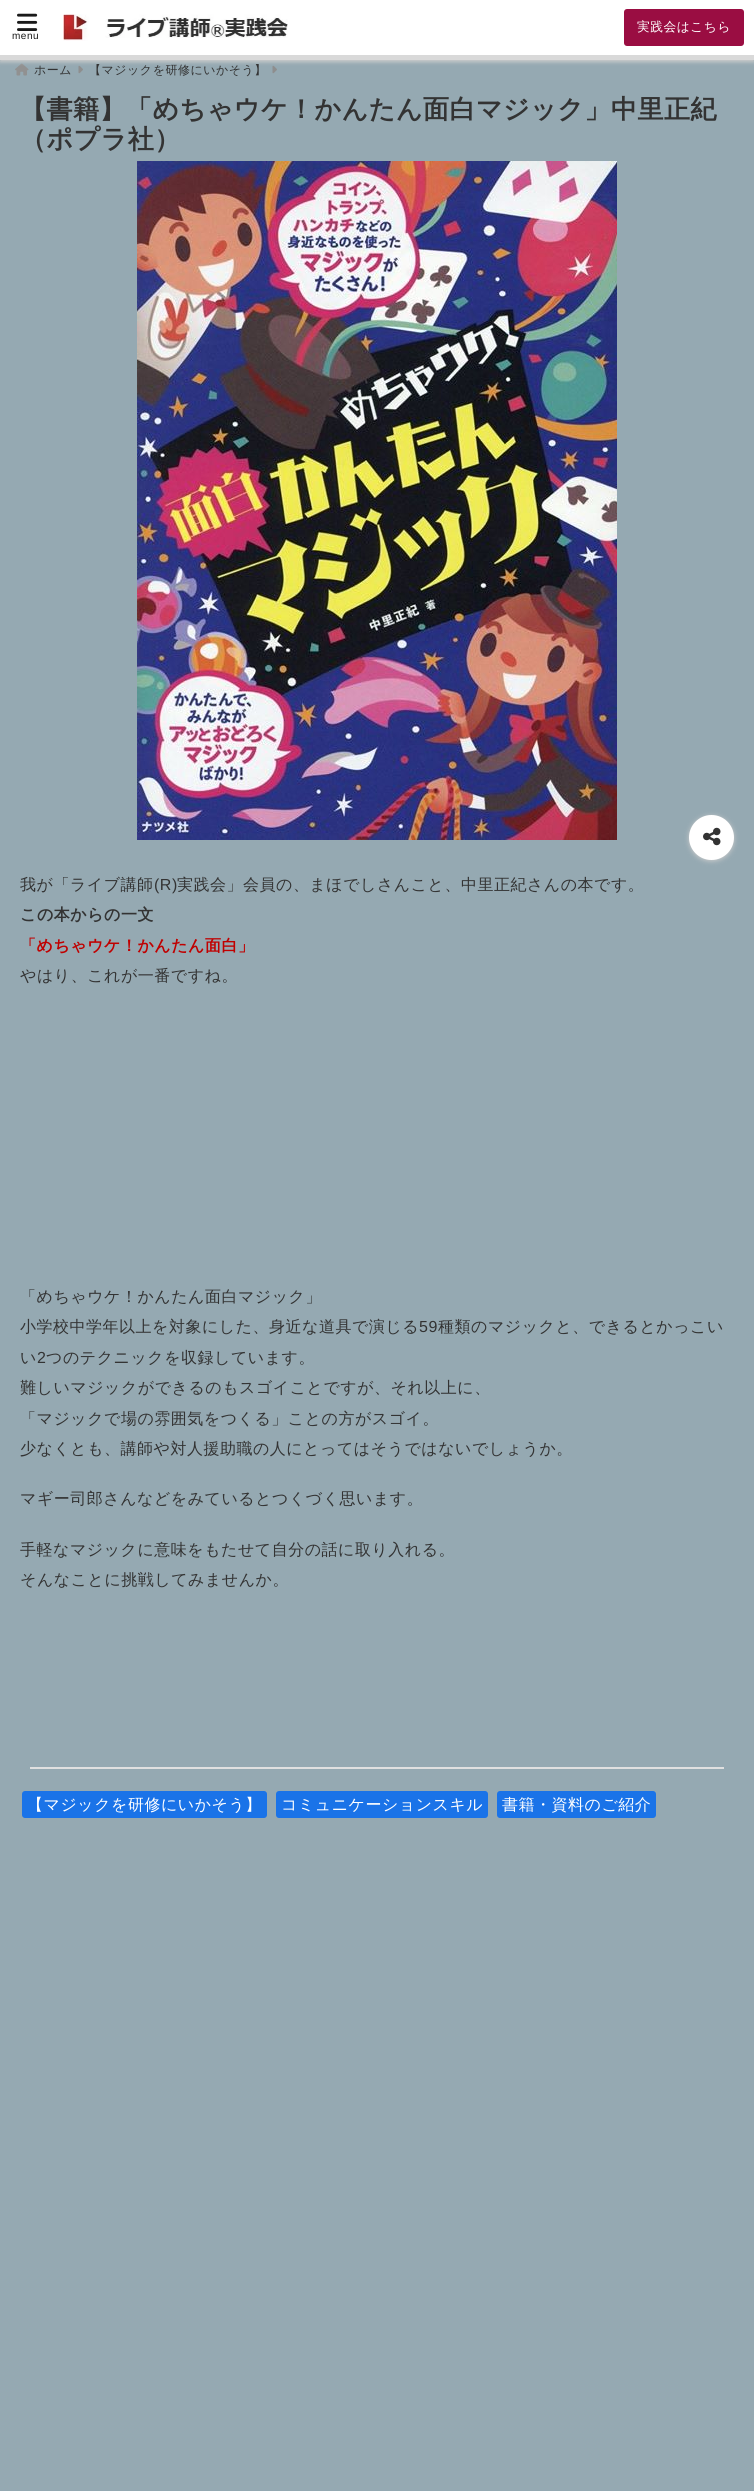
#include <cairo.h>
#include <math.h>
#include <stddef.h>

typedef struct { double x, y; const char *s; } line_t;

static void ink(cairo_t *ctx, unsigned color) {
    cairo_set_source_rgb(ctx, (color >> 16) / 255.0, (color >> 8 & 255) / 255.0, (color & 255) / 255.0);
}

static void write_spaced(cairo_t *ctx, double x, double y, const char *s, double letter, double word) {
    cairo_move_to(ctx, x, y);
    while (*s) {
        char ch[5] = {0};
        int n = 0;
        do ch[n++] = *s++; while ((*s & 0xC0) == 0x80);
        cairo_show_text(ctx, ch);
        cairo_rel_move_to(ctx, letter + word * (*ch == ' '), 0);
    }
}

static void round_path(cairo_t *ctx, double x, double y, double w, double h, double r) {
    cairo_new_sub_path(ctx);
    cairo_arc(ctx, x + w - r, y + h - r, r, 0, M_PI / 2);
    cairo_arc(ctx, x + r, y + h - r, r, M_PI / 2, M_PI);
    cairo_arc(ctx, x + r, y + r, r, M_PI, 1.5 * M_PI);
    cairo_arc(ctx, x + w - r, y + r, r, 1.5 * M_PI, 2 * M_PI);
    cairo_close_path(ctx);
}

static void blur_box(cairo_t *ctx, double x, double y, double w, double h, double r, double blur, double alpha) {
    cairo_push_group_with_content(ctx, CAIRO_CONTENT_ALPHA);
    cairo_set_operator(ctx, CAIRO_OPERATOR_SOURCE);
    for (int i = 15; i >= -15 && fmin(w, h) + blur * i / 3 > 0; i -= 2) {
        double e = blur * i / 6;
        cairo_set_source_rgba(ctx, 0, 0, 0, alpha * erfc((i - 1) / 8.5) / 2);
        round_path(ctx, x - e, y - e, w + 2 * e, h + 2 * e, fmax(0, fmin(r + e + blur * .6, fmin(w, h) / 2 + e)));
        cairo_fill(ctx);
    }
    cairo_pattern_t *soft = cairo_pop_group(ctx);
    cairo_mask(ctx, soft);
    cairo_pattern_destroy(soft);
}

static void paste(cairo_t *ctx, const char *path, double x, double y, double w, double h) {
    cairo_surface_t *image = cairo_image_surface_create_from_png(path);
    cairo_save(ctx);
    cairo_set_source_surface(ctx, image, x, y);
    cairo_rectangle(ctx, x, y, w, h);
    cairo_fill(ctx);
    cairo_restore(ctx);
    cairo_surface_destroy(image);
}

int main(void) {
    cairo_surface_t *surface = cairo_image_surface_create(CAIRO_FORMAT_RGB24, 754, 2491);
    cairo_t *ctx = cairo_create(surface);
    cairo_font_options_t *options = cairo_font_options_create();
    cairo_font_options_set_hint_metrics(options, CAIRO_HINT_METRICS_OFF);
    cairo_font_options_set_hint_style(options, CAIRO_HINT_STYLE_NONE);
    cairo_set_font_options(ctx, options);
    cairo_set_miter_limit(ctx, 4);
    ink(ctx, 0x95A9B2);
    cairo_paint(ctx);
    paste(ctx, "media/3.png", 15, 63, 14, 13);
    paste(ctx, "media/4.png", 78, 65, 5, 9);
    paste(ctx, "media/4.png", 272, 65, 5, 9);
    ink(ctx, 0xCCCCCC);
    blur_box(ctx, 0, 2, 754, 60, 0, 2, 1);
    ink(ctx, 0xFFFFFF);
    cairo_rectangle(ctx, 0, 0, 754, 55);
    cairo_fill(ctx);
    paste(ctx, "media/1.png", 63, 14, 225, 27);
    ink(ctx, 0x9A0D42);
    round_path(ctx, 624, 9, 120, 37, 3);
    cairo_fill(ctx);
    cairo_select_font_face(ctx, "WenQuanYi Zen Hei Medium", CAIRO_FONT_SLANT_NORMAL, CAIRO_FONT_WEIGHT_NORMAL);
    cairo_set_font_size(ctx, 12.75);
    ink(ctx, 0xFFFFFF);
    write_spaced(ctx, 637, 31, "実践会はこちら", 0.5, 0);
    paste(ctx, "media/2.png", 17, 13, 21, 18);
    cairo_select_font_face(ctx, "Liberation Sans", CAIRO_FONT_SLANT_NORMAL, CAIRO_FONT_WEIGHT_NORMAL);
    cairo_set_font_size(ctx, 10);
    ink(ctx, 0x1A1A1A);
    write_spaced(ctx, 12, 39, "menu", 0.5, 0);
    ink(ctx, 0xD9D9D9);
    cairo_rectangle(ctx, 0, 55, 754, 5);
    cairo_fill(ctx);
    cairo_select_font_face(ctx, "WenQuanYi Zen Hei Medium", CAIRO_FONT_SLANT_NORMAL, CAIRO_FONT_WEIGHT_NORMAL);
    cairo_set_font_size(ctx, 12);
    ink(ctx, 0x333333);
    write_spaced(ctx, 34, 74, "ホーム", 0.5, 0);
    write_spaced(ctx, 89, 74, "【マジックを研修にいかそう】", 0.5, 0);
    cairo_select_font_face(ctx, "WenQuanYi Zen Hei", CAIRO_FONT_SLANT_NORMAL, CAIRO_FONT_WEIGHT_BOLD);
    cairo_set_font_size(ctx, 26);
    write_spaced(ctx, 20, 118, "【書籍】「めちゃウケ！かんたん面白マジック」中里正紀", 0.5, 0);
    write_spaced(ctx, 20, 148, "（ポプラ社）", 0.5, 0);
    paste(ctx, "media/5.png", 137, 161, 480, 679);
    ink(ctx, 0xCCCCCC);
    blur_box(ctx, 689, 816, 45, 45, 22.5, 2.5, 1);
    ink(ctx, 0xFFFFFF);
    cairo_arc(ctx, 711.5, 837.5, 22.5, 0, 2 * M_PI);
    cairo_fill(ctx);
    paste(ctx, "media/6.png", 703, 827, 18, 19);
    cairo_select_font_face(ctx, "WenQuanYi Zen Hei Medium", CAIRO_FONT_SLANT_NORMAL, CAIRO_FONT_WEIGHT_NORMAL);
    cairo_set_font_size(ctx, 16);
    ink(ctx, 0x333333);
    write_spaced(ctx, 20, 890, "我が「ライブ講師", 0.5, 0);
    cairo_select_font_face(ctx, "Liberation Sans", CAIRO_FONT_SLANT_NORMAL, CAIRO_FONT_WEIGHT_NORMAL);
    write_spaced(ctx, 154, 890, "(R)", 0.5, 0);
    cairo_select_font_face(ctx, "WenQuanYi Zen Hei Medium", CAIRO_FONT_SLANT_NORMAL, CAIRO_FONT_WEIGHT_NORMAL);
    write_spaced(ctx, 177, 890, "実践会」会員の、まほでしさんこと、中里正紀さんの本です。", 0.5, 0);
    cairo_select_font_face(ctx, "WenQuanYi Zen Hei", CAIRO_FONT_SLANT_NORMAL, CAIRO_FONT_WEIGHT_BOLD);
    write_spaced(ctx, 20, 920, "この本からの一文", 0.5, 0);
    ink(ctx, 0xC00000);
    write_spaced(ctx, 20, 951, "「めちゃウケ！かんたん面白」", 0.5, 0);
    cairo_select_font_face(ctx, "WenQuanYi Zen Hei Medium", CAIRO_FONT_SLANT_NORMAL, CAIRO_FONT_WEIGHT_NORMAL);
    ink(ctx, 0x333333);
    {
        static const line_t items[] = {
            {20, 981, "やはり、これが一番ですね。"},
            {20, 1302, "「めちゃウケ！かんたん面白マジック」"},
            {20, 1332, "小学校中学年以上を対象にした、身近な道具で演じる"},
        };
        for (size_t i = 0; i < sizeof items / sizeof *items; i++) {
            write_spaced(ctx, items[i].x, items[i].y, items[i].s, 0.5, 0);
        }
    }
    cairo_select_font_face(ctx, "Liberation Sans", CAIRO_FONT_SLANT_NORMAL, CAIRO_FONT_WEIGHT_NORMAL);
    write_spaced(ctx, 419, 1332, "59", 0.5, 0);
    cairo_select_font_face(ctx, "WenQuanYi Zen Hei Medium", CAIRO_FONT_SLANT_NORMAL, CAIRO_FONT_WEIGHT_NORMAL);
    write_spaced(ctx, 438, 1332, "種類のマジックと、できるとかっこい", 0.5, 0);
    write_spaced(ctx, 20, 1363, "い", 0.5, 0);
    cairo_select_font_face(ctx, "Liberation Sans", CAIRO_FONT_SLANT_NORMAL, CAIRO_FONT_WEIGHT_NORMAL);
    write_spaced(ctx, 37, 1363, "2", 0.5, 0);
    cairo_select_font_face(ctx, "WenQuanYi Zen Hei Medium", CAIRO_FONT_SLANT_NORMAL, CAIRO_FONT_WEIGHT_NORMAL);
    {
        static const line_t items[] = {
            {46, 1363, "つのテクニックを収録しています。"},
            {20, 1393, "難しいマジックができるのもスゴイことですが、それ以上に、"},
            {20, 1424, "「マジックで場の雰囲気をつくる」ことの方がスゴイ。"},
            {20, 1454, "少なくとも、講師や対人援助職の人にとってはそうではないでしょうか。"},
            {20, 1504, "マギー司郎さんなどをみているとつくづく思います。"},
            {20, 1555, "手軽なマジックに意味をもたせて自分の話に取り入れる。"},
            {20, 1585, "そんなことに挑戦してみませんか。"},
        };
        for (size_t i = 0; i < sizeof items / sizeof *items; i++) {
            write_spaced(ctx, items[i].x, items[i].y, items[i].s, 0.5, 0);
        }
    }
    ink(ctx, 0xE0E0E0);
    cairo_rectangle(ctx, 30, 1767, 694, 2);
    cairo_fill(ctx);
    ink(ctx, 0x1A73E8);
    round_path(ctx, 22, 1791, 245, 27, 3);
    cairo_fill(ctx);
    ink(ctx, 0xFFFFFF);
    write_spaced(ctx, 27, 1810, "【マジックを研修にいかそう】", 0.5, 0);
    ink(ctx, 0x1A73E8);
    round_path(ctx, 276, 1791, 212, 27, 3);
    cairo_fill(ctx);
    ink(ctx, 0xFFFFFF);
    write_spaced(ctx, 281, 1810, "コミュニケーションスキル", 0.5, 0);
    ink(ctx, 0x1A73E8);
    round_path(ctx, 497, 1791, 159, 27, 3);
    cairo_fill(ctx);
    ink(ctx, 0xFFFFFF);
    write_spaced(ctx, 502, 1810, "書籍・資料のご紹介", 0.5, 0);
    cairo_surface_write_to_png(surface, "image.png");
    cairo_font_options_destroy(options);
    cairo_destroy(ctx);
    cairo_surface_destroy(surface);
    return 0;
}
